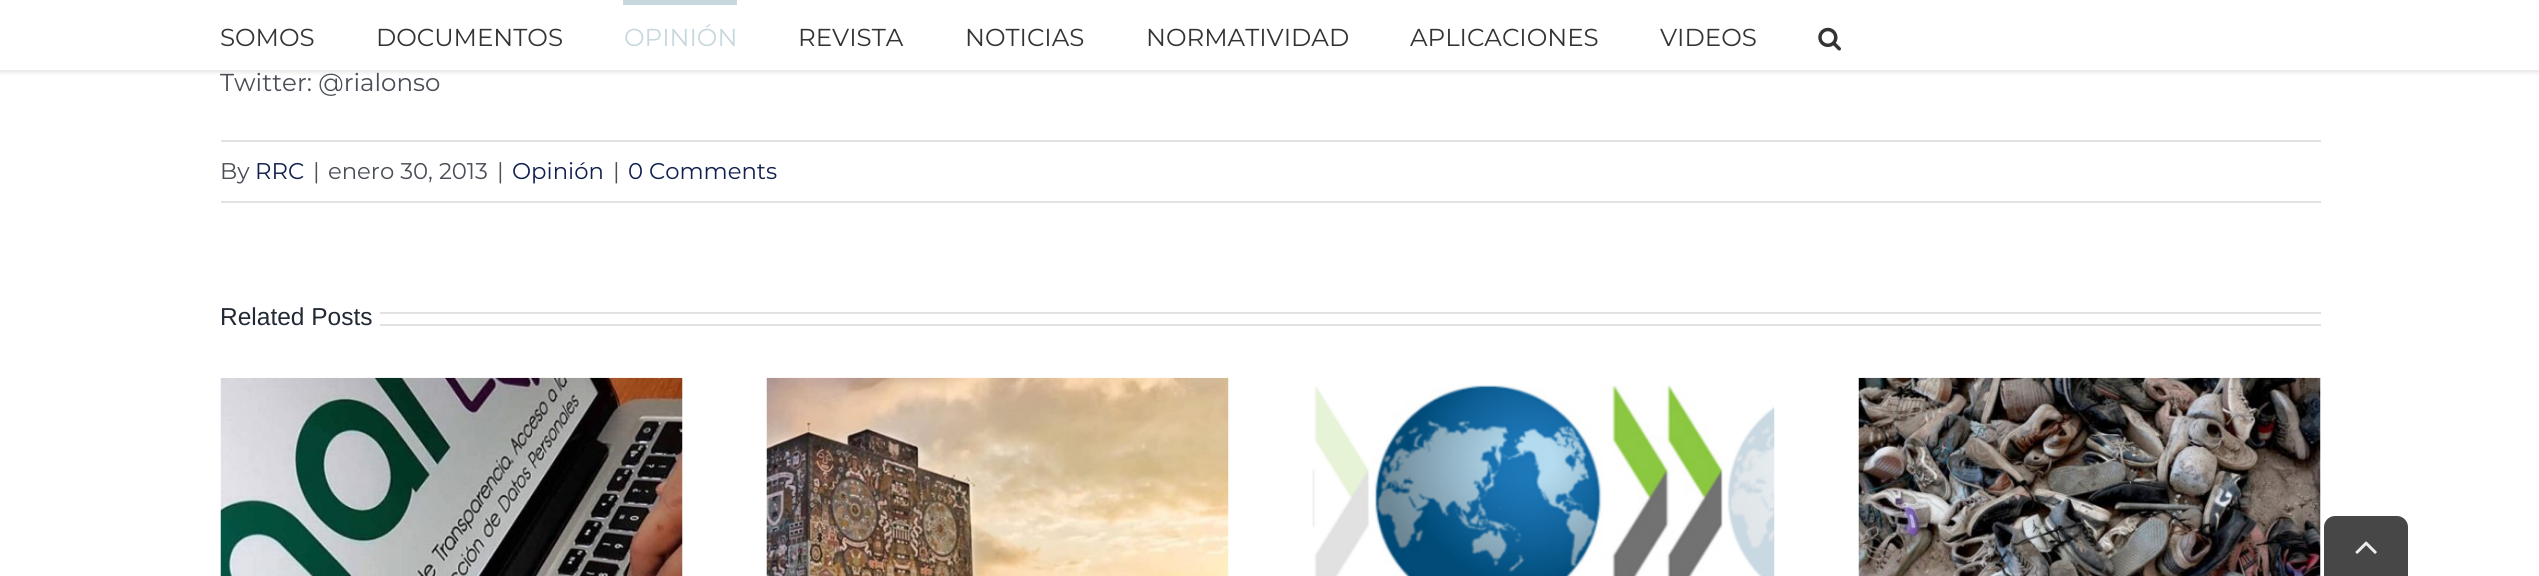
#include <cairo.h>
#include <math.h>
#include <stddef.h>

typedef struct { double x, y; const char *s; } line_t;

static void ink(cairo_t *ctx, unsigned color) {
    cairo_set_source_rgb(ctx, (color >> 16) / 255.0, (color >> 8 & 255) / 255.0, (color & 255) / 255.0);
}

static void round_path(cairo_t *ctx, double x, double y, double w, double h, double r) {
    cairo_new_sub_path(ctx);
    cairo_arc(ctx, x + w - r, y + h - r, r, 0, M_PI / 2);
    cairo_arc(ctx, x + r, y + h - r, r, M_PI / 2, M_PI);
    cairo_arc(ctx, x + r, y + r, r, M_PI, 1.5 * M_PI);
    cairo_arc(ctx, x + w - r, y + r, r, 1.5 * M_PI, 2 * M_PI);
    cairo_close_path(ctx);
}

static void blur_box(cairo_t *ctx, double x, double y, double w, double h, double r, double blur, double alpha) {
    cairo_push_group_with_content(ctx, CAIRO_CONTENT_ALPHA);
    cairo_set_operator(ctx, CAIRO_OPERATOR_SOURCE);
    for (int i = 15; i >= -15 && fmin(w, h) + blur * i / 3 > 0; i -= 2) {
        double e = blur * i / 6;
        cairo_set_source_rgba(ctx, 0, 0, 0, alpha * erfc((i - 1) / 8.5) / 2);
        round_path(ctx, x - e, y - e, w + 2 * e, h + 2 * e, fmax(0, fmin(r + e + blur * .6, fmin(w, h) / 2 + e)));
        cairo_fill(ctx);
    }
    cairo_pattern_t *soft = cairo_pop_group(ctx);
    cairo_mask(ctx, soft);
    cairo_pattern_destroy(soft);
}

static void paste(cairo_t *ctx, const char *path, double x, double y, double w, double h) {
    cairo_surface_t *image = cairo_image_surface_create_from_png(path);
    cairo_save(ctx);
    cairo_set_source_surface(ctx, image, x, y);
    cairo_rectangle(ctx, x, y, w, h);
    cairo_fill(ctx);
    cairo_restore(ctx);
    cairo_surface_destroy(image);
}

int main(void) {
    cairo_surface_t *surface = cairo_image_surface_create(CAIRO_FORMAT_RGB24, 2539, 576);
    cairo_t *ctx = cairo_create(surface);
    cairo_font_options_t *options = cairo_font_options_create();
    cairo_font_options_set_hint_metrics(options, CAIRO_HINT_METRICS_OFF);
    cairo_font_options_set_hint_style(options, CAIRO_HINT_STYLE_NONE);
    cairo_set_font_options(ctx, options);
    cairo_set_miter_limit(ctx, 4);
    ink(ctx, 0xFFFFFF);
    cairo_paint(ctx);
    ink(ctx, 0x000000);
    blur_box(ctx, 0, 2, 2539, 70, 0, 2.5, 0.12);
    ink(ctx, 0xFFFFFF);
    cairo_rectangle(ctx, 0, 0, 2539, 70);
    cairo_fill(ctx);
    cairo_select_font_face(ctx, "Montserrat", CAIRO_FONT_SLANT_NORMAL, CAIRO_FONT_WEIGHT_NORMAL);
    cairo_set_font_size(ctx, 24.5);
    ink(ctx, 0x333333);
    cairo_move_to(ctx, 220, 46);
    cairo_show_text(ctx, "SOMOS");
    cairo_move_to(ctx, 376, 46);
    cairo_show_text(ctx, "DOCUMENTOS");
    ink(ctx, 0xC6D8DE);
    cairo_rectangle(ctx, 623, 0, 114, 5);
    cairo_fill(ctx);
    cairo_move_to(ctx, 624, 46);
    cairo_show_text(ctx, "OPINIÓN");
    ink(ctx, 0x333333);
    {
        static const line_t items[] = {
            {798, 46, "REVISTA"},
            {965, 46, "NOTICIAS"},
            {1146, 46, "NORMATIVIDAD"},
            {1410, 46, "APLICACIONES"},
            {1660, 46, "VIDEOS"},
        };
        for (size_t i = 0; i < sizeof items / sizeof *items; i++) {
            cairo_move_to(ctx, items[i].x, items[i].y);
            cairo_show_text(ctx, items[i].s);
        }
    }
    paste(ctx, "media/1.png", 1818, 27, 23, 24);
    ink(ctx, 0x4A4E57);
    cairo_move_to(ctx, 220, 91);
    cairo_show_text(ctx, "Twitter: @rialonso");
    ink(ctx, 0xE2E2E2);
    cairo_rectangle(ctx, 221, 140, 2100, 2);
    cairo_fill(ctx);
    cairo_rectangle(ctx, 221, 201, 2100, 2);
    cairo_fill(ctx);
    cairo_set_font_size(ctx, 22.75);
    ink(ctx, 0x4A4E57);
    cairo_move_to(ctx, 220, 179);
    cairo_show_text(ctx, "By");
    ink(ctx, 0x111F4D);
    cairo_move_to(ctx, 255, 179);
    cairo_show_text(ctx, "RRC");
    ink(ctx, 0x4A4E57);
    {
        static const line_t items[] = {
            {313, 179, "|"},
            {328, 179, "enero 30, 2013"},
            {497, 179, "|"},
        };
        for (size_t i = 0; i < sizeof items / sizeof *items; i++) {
            cairo_move_to(ctx, items[i].x, items[i].y);
            cairo_show_text(ctx, items[i].s);
        }
    }
    ink(ctx, 0x111F4D);
    cairo_move_to(ctx, 512, 179);
    cairo_show_text(ctx, "Opinión");
    ink(ctx, 0x4A4E57);
    cairo_move_to(ctx, 613, 179);
    cairo_show_text(ctx, "|");
    ink(ctx, 0x111F4D);
    cairo_move_to(ctx, 628, 179);
    cairo_show_text(ctx, "0 Comments");
    cairo_select_font_face(ctx, "Liberation Sans", CAIRO_FONT_SLANT_NORMAL, CAIRO_FONT_WEIGHT_NORMAL);
    cairo_set_font_size(ctx, 24.5);
    ink(ctx, 0x212934);
    cairo_move_to(ctx, 220, 325);
    cairo_show_text(ctx, "Related Posts");
    ink(ctx, 0xE2E2E2);
    cairo_rectangle(ctx, 380, 312, 1941, 2);
    cairo_fill(ctx);
    cairo_rectangle(ctx, 380, 324, 1941, 2);
    cairo_fill(ctx);
    paste(ctx, "media/2.png", 220, 377, 463, 199);
    paste(ctx, "media/3.png", 766, 377, 463, 199);
    paste(ctx, "media/4.png", 1312, 385, 463, 191);
    paste(ctx, "media/5.png", 1858, 377, 463, 199);
    ink(ctx, 0x474747);
    cairo_new_path(ctx);
    cairo_move_to(ctx, 2335, 516);
    cairo_line_to(ctx, 2397, 516);
    cairo_curve_to(ctx, 2403, 516, 2408, 521, 2408, 527);
    cairo_line_to(ctx, 2408, 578);
    cairo_line_to(ctx, 2324, 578);
    cairo_line_to(ctx, 2324, 527);
    cairo_curve_to(ctx, 2324, 521, 2329, 516, 2335, 516);
    cairo_close_path(ctx);
    cairo_fill(ctx);
    paste(ctx, "media/6.png", 2355, 541, 22, 13);
    cairo_surface_write_to_png(surface, "image.png");
    cairo_font_options_destroy(options);
    cairo_destroy(ctx);
    cairo_surface_destroy(surface);
    return 0;
}
